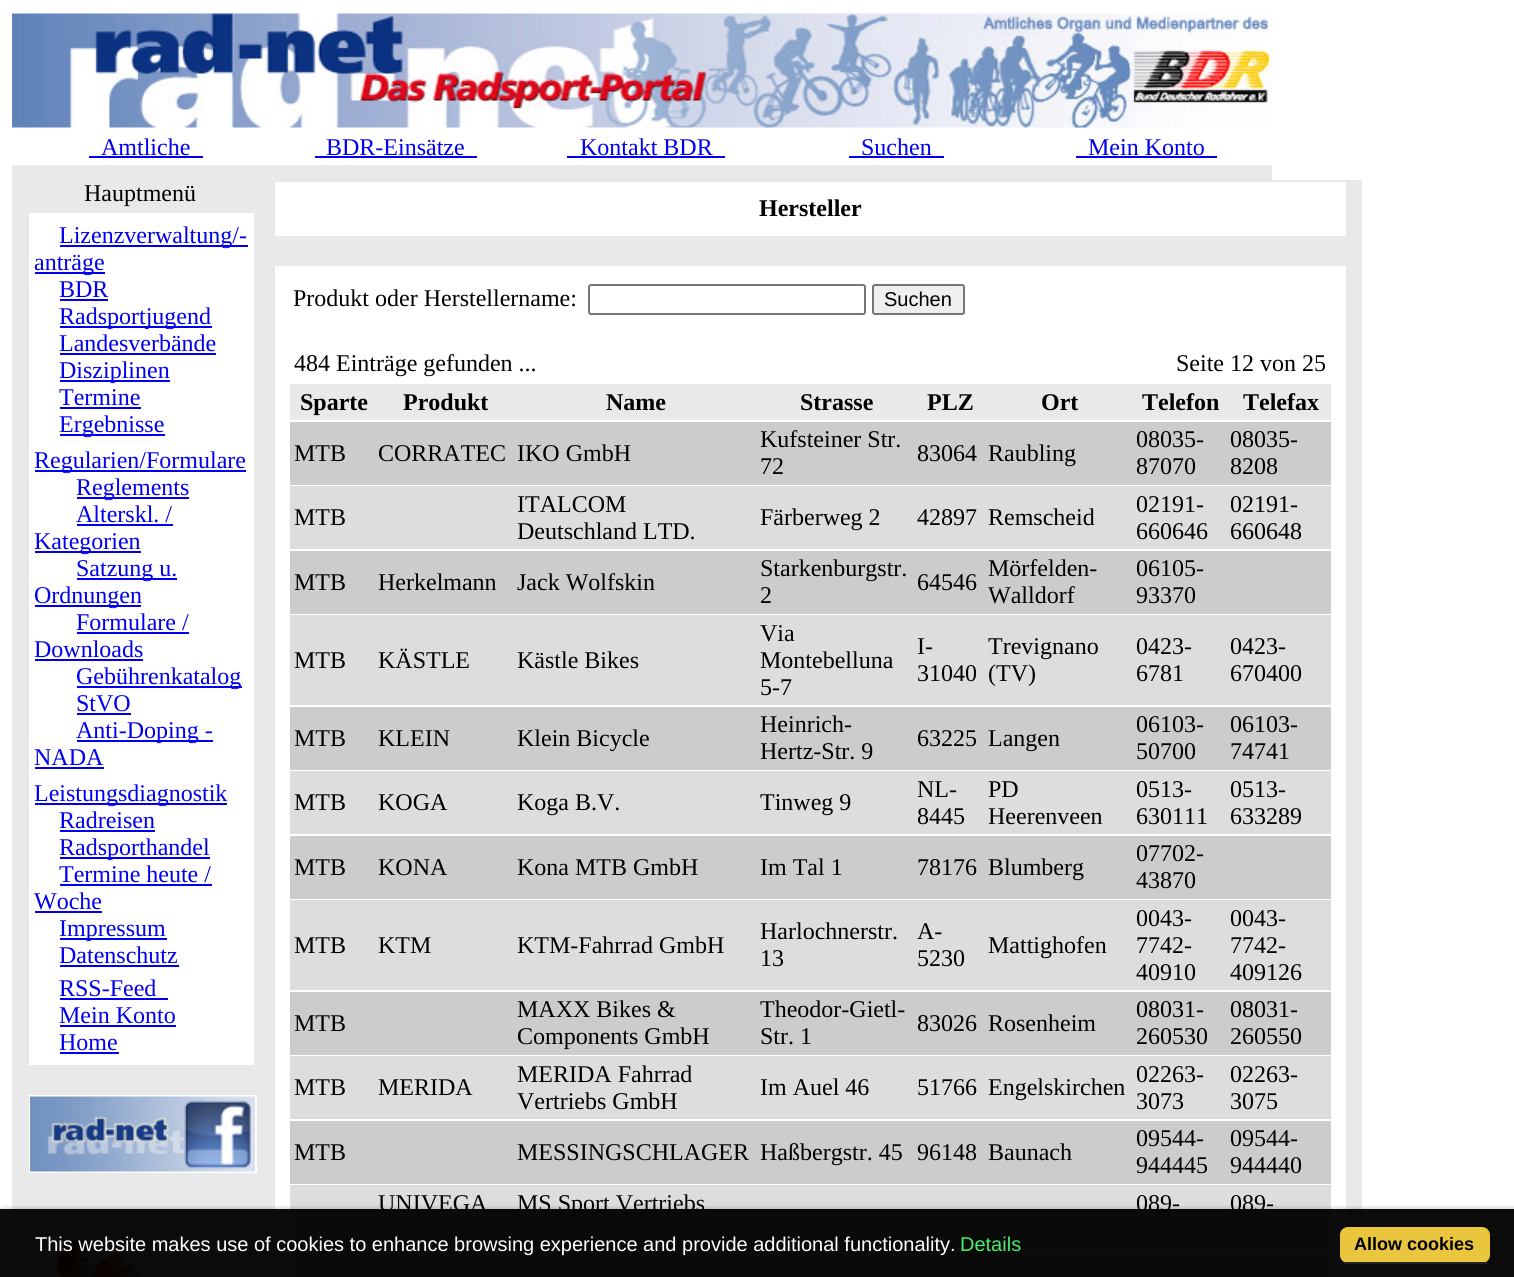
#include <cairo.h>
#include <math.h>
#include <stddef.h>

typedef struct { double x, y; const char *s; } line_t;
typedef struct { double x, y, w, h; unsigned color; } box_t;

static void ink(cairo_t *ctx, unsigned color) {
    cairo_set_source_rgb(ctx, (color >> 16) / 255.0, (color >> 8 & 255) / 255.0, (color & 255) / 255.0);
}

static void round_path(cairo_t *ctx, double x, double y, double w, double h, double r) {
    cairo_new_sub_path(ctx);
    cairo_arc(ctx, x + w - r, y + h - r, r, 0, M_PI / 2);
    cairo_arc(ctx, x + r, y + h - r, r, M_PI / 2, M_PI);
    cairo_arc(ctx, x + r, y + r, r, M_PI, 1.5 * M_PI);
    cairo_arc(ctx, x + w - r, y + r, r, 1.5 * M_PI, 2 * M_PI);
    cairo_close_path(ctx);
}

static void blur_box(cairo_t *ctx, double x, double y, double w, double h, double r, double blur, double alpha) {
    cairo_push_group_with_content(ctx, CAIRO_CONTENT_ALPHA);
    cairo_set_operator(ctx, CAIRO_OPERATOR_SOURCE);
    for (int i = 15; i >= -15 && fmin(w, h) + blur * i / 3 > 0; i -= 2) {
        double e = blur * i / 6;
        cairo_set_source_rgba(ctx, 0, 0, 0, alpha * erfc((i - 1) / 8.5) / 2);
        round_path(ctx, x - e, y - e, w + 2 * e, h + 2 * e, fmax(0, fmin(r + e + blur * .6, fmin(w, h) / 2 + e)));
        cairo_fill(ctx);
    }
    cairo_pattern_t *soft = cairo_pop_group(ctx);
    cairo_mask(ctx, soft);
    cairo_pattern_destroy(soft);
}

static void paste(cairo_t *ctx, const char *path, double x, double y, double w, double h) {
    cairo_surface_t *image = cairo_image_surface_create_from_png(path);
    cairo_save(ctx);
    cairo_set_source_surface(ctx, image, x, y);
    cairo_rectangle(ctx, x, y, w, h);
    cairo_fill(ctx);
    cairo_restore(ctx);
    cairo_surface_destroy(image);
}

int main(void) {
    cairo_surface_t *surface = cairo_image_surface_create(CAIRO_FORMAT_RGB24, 1514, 1277);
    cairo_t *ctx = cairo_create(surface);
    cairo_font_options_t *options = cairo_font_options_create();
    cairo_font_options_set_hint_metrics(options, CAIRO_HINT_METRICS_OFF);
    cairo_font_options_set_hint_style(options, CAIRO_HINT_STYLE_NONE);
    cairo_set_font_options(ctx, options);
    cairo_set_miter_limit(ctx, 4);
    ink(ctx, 0xFFFFFF);
    cairo_paint(ctx);
    paste(ctx, "media/1.png", 12, 13, 1260, 115);
    cairo_select_font_face(ctx, "Liberation Serif", CAIRO_FONT_SLANT_NORMAL, CAIRO_FONT_WEIGHT_NORMAL);
    cairo_set_font_size(ctx, 24);
    ink(ctx, 0x0000EE);
    cairo_move_to(ctx, 101, 155);
    cairo_show_text(ctx, "Amtliche");
    cairo_rectangle(ctx, 89, 156, 114, 2);
    cairo_fill(ctx);
    cairo_move_to(ctx, 326, 155);
    cairo_show_text(ctx, "BDR-Einsätze");
    cairo_rectangle(ctx, 315, 156, 162, 2);
    cairo_fill(ctx);
    cairo_move_to(ctx, 580, 155);
    cairo_show_text(ctx, "Kontakt BDR");
    cairo_rectangle(ctx, 567, 156, 158, 2);
    cairo_fill(ctx);
    cairo_move_to(ctx, 861, 155);
    cairo_show_text(ctx, "Suchen");
    cairo_rectangle(ctx, 849, 156, 95, 2);
    cairo_fill(ctx);
    cairo_move_to(ctx, 1088, 155);
    cairo_show_text(ctx, "Mein Konto");
    {
        static const box_t items[] = {
            {1076, 156, 141, 2, 0x0000EE},
            {12, 165, 1260, 15, 0xE9E9E9},
            {12, 180, 1350, 1097, 0xE9E9E9},
        };
        for (size_t i = 0; i < sizeof items / sizeof *items; i++) {
            ink(ctx, items[i].color);
            cairo_rectangle(ctx, items[i].x, items[i].y, items[i].w, items[i].h);
            cairo_fill(ctx);
        }
    }
    ink(ctx, 0x000000);
    cairo_move_to(ctx, 84, 201);
    cairo_show_text(ctx, "Hauptmenü");
    ink(ctx, 0xFFFFFF);
    cairo_rectangle(ctx, 29, 213, 225, 852);
    cairo_fill(ctx);
    ink(ctx, 0x0000EE);
    cairo_rectangle(ctx, 60, 245, 188, 2);
    cairo_fill(ctx);
    cairo_move_to(ctx, 59, 243);
    cairo_show_text(ctx, "Lizenzverwaltung/-");
    cairo_rectangle(ctx, 35, 272, 70, 2);
    cairo_fill(ctx);
    cairo_move_to(ctx, 34, 270);
    cairo_show_text(ctx, "anträge");
    cairo_move_to(ctx, 59, 297);
    cairo_show_text(ctx, "BDR");
    cairo_rectangle(ctx, 60, 299, 48, 2);
    cairo_fill(ctx);
    cairo_rectangle(ctx, 60, 326, 152, 2);
    cairo_fill(ctx);
    cairo_move_to(ctx, 59, 324);
    cairo_show_text(ctx, "Radsportjugend");
    cairo_move_to(ctx, 59, 351);
    cairo_show_text(ctx, "Landesverbände");
    cairo_rectangle(ctx, 60, 353, 156, 2);
    cairo_fill(ctx);
    cairo_rectangle(ctx, 60, 380, 110, 2);
    cairo_fill(ctx);
    cairo_move_to(ctx, 59, 378);
    cairo_show_text(ctx, "Disziplinen");
    cairo_move_to(ctx, 59, 405);
    cairo_show_text(ctx, "Termine");
    cairo_rectangle(ctx, 60, 407, 81, 2);
    cairo_fill(ctx);
    cairo_rectangle(ctx, 60, 434, 105, 2);
    cairo_fill(ctx);
    cairo_move_to(ctx, 59, 432);
    cairo_show_text(ctx, "Ergebnisse");
    cairo_rectangle(ctx, 35, 470, 211, 2);
    cairo_fill(ctx);
    cairo_move_to(ctx, 34, 468);
    cairo_show_text(ctx, "Regularien/Formulare");
    cairo_rectangle(ctx, 77, 497, 112, 2);
    cairo_fill(ctx);
    cairo_move_to(ctx, 76, 495);
    cairo_show_text(ctx, "Reglements");
    cairo_move_to(ctx, 76, 522);
    cairo_show_text(ctx, "Alterskl. /");
    cairo_rectangle(ctx, 77, 524, 96, 2);
    cairo_fill(ctx);
    cairo_rectangle(ctx, 35, 551, 106, 2);
    cairo_fill(ctx);
    cairo_move_to(ctx, 34, 549);
    cairo_show_text(ctx, "Kategorien");
    cairo_rectangle(ctx, 77, 578, 100, 2);
    cairo_fill(ctx);
    cairo_move_to(ctx, 76, 576);
    cairo_show_text(ctx, "Satzung u.");
    cairo_rectangle(ctx, 35, 605, 106, 2);
    cairo_fill(ctx);
    cairo_move_to(ctx, 34, 603);
    cairo_show_text(ctx, "Ordnungen");
    cairo_move_to(ctx, 76, 630);
    cairo_show_text(ctx, "Formulare /");
    cairo_rectangle(ctx, 77, 632, 112, 2);
    cairo_fill(ctx);
    cairo_move_to(ctx, 34, 657);
    cairo_show_text(ctx, "Downloads");
    cairo_rectangle(ctx, 35, 659, 108, 2);
    cairo_fill(ctx);
    cairo_rectangle(ctx, 77, 686, 165, 2);
    cairo_fill(ctx);
    cairo_move_to(ctx, 76, 684);
    cairo_show_text(ctx, "Gebührenkatalog");
    cairo_move_to(ctx, 76, 711);
    cairo_show_text(ctx, "StVO");
    cairo_rectangle(ctx, 77, 713, 54, 2);
    cairo_fill(ctx);
    cairo_rectangle(ctx, 77, 740, 136, 2);
    cairo_fill(ctx);
    cairo_move_to(ctx, 76, 738);
    cairo_show_text(ctx, "Anti-Doping -");
    cairo_move_to(ctx, 34, 765);
    cairo_show_text(ctx, "NADA");
    cairo_rectangle(ctx, 35, 767, 69, 2);
    cairo_fill(ctx);
    cairo_rectangle(ctx, 35, 803, 192, 2);
    cairo_fill(ctx);
    cairo_move_to(ctx, 34, 801);
    cairo_show_text(ctx, "Leistungsdiagnostik");
    cairo_move_to(ctx, 59, 828);
    cairo_show_text(ctx, "Radreisen");
    cairo_rectangle(ctx, 60, 830, 95, 2);
    cairo_fill(ctx);
    cairo_rectangle(ctx, 60, 857, 150, 2);
    cairo_fill(ctx);
    cairo_move_to(ctx, 59, 855);
    cairo_show_text(ctx, "Radsporthandel");
    cairo_move_to(ctx, 59, 882);
    cairo_show_text(ctx, "Termine heute /");
    cairo_rectangle(ctx, 60, 884, 152, 2);
    cairo_fill(ctx);
    cairo_move_to(ctx, 34, 909);
    cairo_show_text(ctx, "Woche");
    cairo_rectangle(ctx, 35, 911, 67, 2);
    cairo_fill(ctx);
    cairo_rectangle(ctx, 60, 938, 107, 2);
    cairo_fill(ctx);
    cairo_move_to(ctx, 59, 936);
    cairo_show_text(ctx, "Impressum");
    cairo_move_to(ctx, 59, 963);
    cairo_show_text(ctx, "Datenschutz");
    cairo_rectangle(ctx, 60, 965, 119, 2);
    cairo_fill(ctx);
    cairo_move_to(ctx, 59, 996);
    cairo_show_text(ctx, "RSS-Feed");
    cairo_rectangle(ctx, 60, 998, 108, 2);
    cairo_fill(ctx);
    cairo_move_to(ctx, 59, 1023);
    cairo_show_text(ctx, "Mein Konto");
    cairo_rectangle(ctx, 60, 1025, 116, 2);
    cairo_fill(ctx);
    cairo_move_to(ctx, 59, 1050);
    cairo_show_text(ctx, "Home");
    cairo_rectangle(ctx, 60, 1052, 59, 2);
    cairo_fill(ctx);
    ink(ctx, 0xFFFFFF);
    cairo_rectangle(ctx, 29, 1095, 228, 78);
    cairo_fill(ctx);
    paste(ctx, "media/2.png", 30, 1096, 225, 76);
    cairo_rectangle(ctx, 29, 1235, 225, 42);
    cairo_fill(ctx);
    paste(ctx, "media/3.png", 48, 1236, 187, 41);
    cairo_rectangle(ctx, 275, 182, 1071, 54);
    cairo_fill(ctx);
    cairo_select_font_face(ctx, "Liberation Serif", CAIRO_FONT_SLANT_NORMAL, CAIRO_FONT_WEIGHT_BOLD);
    ink(ctx, 0x000000);
    cairo_move_to(ctx, 759, 216);
    cairo_show_text(ctx, "Hersteller");
    ink(ctx, 0xFFFFFF);
    cairo_rectangle(ctx, 275, 266, 1071, 1011);
    cairo_fill(ctx);
    cairo_select_font_face(ctx, "Liberation Serif", CAIRO_FONT_SLANT_NORMAL, CAIRO_FONT_WEIGHT_NORMAL);
    ink(ctx, 0x000000);
    cairo_move_to(ctx, 293, 306);
    cairo_show_text(ctx, "Produkt oder Herstellername:");
    round_path(ctx, 589, 285, 276, 29, 2);
    ink(ctx, 0x767676);
    cairo_stroke(ctx);
    ink(ctx, 0xEFEFEF);
    round_path(ctx, 873, 285, 91, 29, 2);
    cairo_fill_preserve(ctx);
    ink(ctx, 0x767676);
    cairo_stroke(ctx);
    cairo_select_font_face(ctx, "Liberation Sans", CAIRO_FONT_SLANT_NORMAL, CAIRO_FONT_WEIGHT_NORMAL);
    cairo_set_font_size(ctx, 20);
    ink(ctx, 0x000000);
    cairo_move_to(ctx, 884, 306);
    cairo_show_text(ctx, "Suchen");
    cairo_select_font_face(ctx, "Liberation Serif", CAIRO_FONT_SLANT_NORMAL, CAIRO_FONT_WEIGHT_NORMAL);
    cairo_set_font_size(ctx, 24);
    cairo_move_to(ctx, 294, 371);
    cairo_show_text(ctx, "484 Einträge gefunden ...");
    cairo_move_to(ctx, 1176, 371);
    cairo_show_text(ctx, "Seite 12 von 25");
    ink(ctx, 0xE9E9E9);
    cairo_rectangle(ctx, 290, 384, 1041, 36);
    cairo_fill(ctx);
    cairo_select_font_face(ctx, "Liberation Serif", CAIRO_FONT_SLANT_NORMAL, CAIRO_FONT_WEIGHT_BOLD);
    ink(ctx, 0x000000);
    {
        static const line_t items[] = {
            {300, 410, "Sparte"},
            {403, 410, "Produkt"},
            {606, 410, "Name"},
            {800, 410, "Strasse"},
            {927, 410, "PLZ"},
            {1041, 410, "Ort"},
            {1142, 410, "Telefon"},
            {1243, 410, "Telefax"},
        };
        for (size_t i = 0; i < sizeof items / sizeof *items; i++) {
            cairo_move_to(ctx, items[i].x, items[i].y);
            cairo_show_text(ctx, items[i].s);
        }
    }
    ink(ctx, 0xCCCCCC);
    cairo_rectangle(ctx, 290, 422, 1041, 63);
    cairo_fill(ctx);
    cairo_select_font_face(ctx, "Liberation Serif", CAIRO_FONT_SLANT_NORMAL, CAIRO_FONT_WEIGHT_NORMAL);
    ink(ctx, 0x000000);
    {
        static const line_t items[] = {
            {294, 461, "MTB"},
            {378, 461, "CORRATEC"},
            {517, 461, "IKO GmbH"},
            {760, 447, "Kufsteiner Str."},
            {760, 474, "72"},
            {917, 461, "83064"},
            {988, 461, "Raubling"},
            {1136, 447, "08035-"},
            {1136, 474, "87070"},
            {1230, 447, "08035-"},
            {1230, 474, "8208"},
        };
        for (size_t i = 0; i < sizeof items / sizeof *items; i++) {
            cairo_move_to(ctx, items[i].x, items[i].y);
            cairo_show_text(ctx, items[i].s);
        }
    }
    ink(ctx, 0xDDDDDD);
    cairo_rectangle(ctx, 290, 486, 1041, 63);
    cairo_fill(ctx);
    ink(ctx, 0x000000);
    {
        static const line_t items[] = {
            {294, 525, "MTB"},
            {517, 512, "ITALCOM"},
            {517, 539, "Deutschland LTD."},
            {760, 525, "Färberweg 2"},
            {917, 525, "42897"},
            {988, 525, "Remscheid"},
            {1136, 512, "02191-"},
            {1136, 539, "660646"},
            {1230, 512, "02191-"},
            {1230, 539, "660648"},
        };
        for (size_t i = 0; i < sizeof items / sizeof *items; i++) {
            cairo_move_to(ctx, items[i].x, items[i].y);
            cairo_show_text(ctx, items[i].s);
        }
    }
    ink(ctx, 0xCCCCCC);
    cairo_rectangle(ctx, 290, 551, 1041, 63);
    cairo_fill(ctx);
    ink(ctx, 0x000000);
    {
        static const line_t items[] = {
            {294, 590, "MTB"},
            {378, 590, "Herkelmann"},
            {517, 590, "Jack Wolfskin"},
            {760, 576, "Starkenburgstr."},
            {760, 603, "2"},
            {917, 590, "64546"},
            {988, 576, "Mörfelden-"},
            {988, 603, "Walldorf"},
            {1136, 576, "06105-"},
            {1136, 603, "93370"},
        };
        for (size_t i = 0; i < sizeof items / sizeof *items; i++) {
            cairo_move_to(ctx, items[i].x, items[i].y);
            cairo_show_text(ctx, items[i].s);
        }
    }
    ink(ctx, 0xDDDDDD);
    cairo_rectangle(ctx, 290, 615, 1041, 90);
    cairo_fill(ctx);
    ink(ctx, 0x000000);
    {
        static const line_t items[] = {
            {294, 668, "MTB"},
            {378, 668, "KÄSTLE"},
            {517, 668, "Kästle Bikes"},
            {760, 641, "Via"},
            {760, 668, "Montebelluna"},
            {760, 695, "5-7"},
            {917, 654, "I-"},
            {917, 681, "31040"},
            {988, 654, "Trevignano"},
            {988, 681, "(TV)"},
            {1136, 654, "0423-"},
            {1136, 681, "6781"},
            {1230, 654, "0423-"},
            {1230, 681, "670400"},
        };
        for (size_t i = 0; i < sizeof items / sizeof *items; i++) {
            cairo_move_to(ctx, items[i].x, items[i].y);
            cairo_show_text(ctx, items[i].s);
        }
    }
    ink(ctx, 0xCCCCCC);
    cairo_rectangle(ctx, 290, 707, 1041, 63);
    cairo_fill(ctx);
    ink(ctx, 0x000000);
    {
        static const line_t items[] = {
            {294, 746, "MTB"},
            {378, 746, "KLEIN"},
            {517, 746, "Klein Bicycle"},
            {760, 732, "Heinrich-"},
            {760, 759, "Hertz-Str. 9"},
            {917, 746, "63225"},
            {988, 746, "Langen"},
            {1136, 732, "06103-"},
            {1136, 759, "50700"},
            {1230, 732, "06103-"},
            {1230, 759, "74741"},
        };
        for (size_t i = 0; i < sizeof items / sizeof *items; i++) {
            cairo_move_to(ctx, items[i].x, items[i].y);
            cairo_show_text(ctx, items[i].s);
        }
    }
    ink(ctx, 0xDDDDDD);
    cairo_rectangle(ctx, 290, 771, 1041, 63);
    cairo_fill(ctx);
    ink(ctx, 0x000000);
    {
        static const line_t items[] = {
            {294, 810, "MTB"},
            {378, 810, "KOGA"},
            {517, 810, "Koga B.V."},
            {760, 810, "Tinweg 9"},
            {917, 797, "NL-"},
            {917, 824, "8445"},
            {988, 797, "PD"},
            {988, 824, "Heerenveen"},
            {1136, 797, "0513-"},
            {1136, 824, "630111"},
            {1230, 797, "0513-"},
            {1230, 824, "633289"},
        };
        for (size_t i = 0; i < sizeof items / sizeof *items; i++) {
            cairo_move_to(ctx, items[i].x, items[i].y);
            cairo_show_text(ctx, items[i].s);
        }
    }
    ink(ctx, 0xCCCCCC);
    cairo_rectangle(ctx, 290, 836, 1041, 63);
    cairo_fill(ctx);
    ink(ctx, 0x000000);
    {
        static const line_t items[] = {
            {294, 875, "MTB"},
            {378, 875, "KONA"},
            {517, 875, "Kona MTB GmbH"},
            {760, 875, "Im Tal 1"},
            {917, 875, "78176"},
            {988, 875, "Blumberg"},
            {1136, 861, "07702-"},
            {1136, 888, "43870"},
        };
        for (size_t i = 0; i < sizeof items / sizeof *items; i++) {
            cairo_move_to(ctx, items[i].x, items[i].y);
            cairo_show_text(ctx, items[i].s);
        }
    }
    ink(ctx, 0xDDDDDD);
    cairo_rectangle(ctx, 290, 900, 1041, 90);
    cairo_fill(ctx);
    ink(ctx, 0x000000);
    {
        static const line_t items[] = {
            {294, 953, "MTB"},
            {378, 953, "KTM"},
            {517, 953, "KTM-Fahrrad GmbH"},
            {760, 939, "Harlochnerstr."},
            {760, 966, "13"},
            {917, 939, "A-"},
            {917, 966, "5230"},
            {988, 953, "Mattighofen"},
            {1136, 926, "0043-"},
            {1136, 953, "7742-"},
            {1136, 980, "40910"},
            {1230, 926, "0043-"},
            {1230, 953, "7742-"},
            {1230, 980, "409126"},
        };
        for (size_t i = 0; i < sizeof items / sizeof *items; i++) {
            cairo_move_to(ctx, items[i].x, items[i].y);
            cairo_show_text(ctx, items[i].s);
        }
    }
    ink(ctx, 0xCCCCCC);
    cairo_rectangle(ctx, 290, 992, 1041, 63);
    cairo_fill(ctx);
    ink(ctx, 0x000000);
    {
        static const line_t items[] = {
            {294, 1031, "MTB"},
            {517, 1017, "MAXX Bikes &"},
            {517, 1044, "Components GmbH"},
            {760, 1017, "Theodor-Gietl-"},
            {760, 1044, "Str. 1"},
            {917, 1031, "83026"},
            {988, 1031, "Rosenheim"},
            {1136, 1017, "08031-"},
            {1136, 1044, "260530"},
            {1230, 1017, "08031-"},
            {1230, 1044, "260550"},
        };
        for (size_t i = 0; i < sizeof items / sizeof *items; i++) {
            cairo_move_to(ctx, items[i].x, items[i].y);
            cairo_show_text(ctx, items[i].s);
        }
    }
    ink(ctx, 0xDDDDDD);
    cairo_rectangle(ctx, 290, 1056, 1041, 63);
    cairo_fill(ctx);
    ink(ctx, 0x000000);
    {
        static const line_t items[] = {
            {294, 1095, "MTB"},
            {378, 1095, "MERIDA"},
            {517, 1082, "MERIDA Fahrrad"},
            {517, 1109, "Vertriebs GmbH"},
            {760, 1095, "Im Auel 46"},
            {917, 1095, "51766"},
            {988, 1095, "Engelskirchen"},
            {1136, 1082, "02263-"},
            {1136, 1109, "3073"},
            {1230, 1082, "02263-"},
            {1230, 1109, "3075"},
        };
        for (size_t i = 0; i < sizeof items / sizeof *items; i++) {
            cairo_move_to(ctx, items[i].x, items[i].y);
            cairo_show_text(ctx, items[i].s);
        }
    }
    ink(ctx, 0xCCCCCC);
    cairo_rectangle(ctx, 290, 1121, 1041, 63);
    cairo_fill(ctx);
    ink(ctx, 0x000000);
    {
        static const line_t items[] = {
            {294, 1160, "MTB"},
            {517, 1160, "MESSINGSCHLAGER"},
            {760, 1160, "Haßbergstr. 45"},
            {917, 1160, "96148"},
            {988, 1160, "Baunach"},
            {1136, 1146, "09544-"},
            {1136, 1173, "944445"},
            {1230, 1146, "09544-"},
            {1230, 1173, "944440"},
        };
        for (size_t i = 0; i < sizeof items / sizeof *items; i++) {
            cairo_move_to(ctx, items[i].x, items[i].y);
            cairo_show_text(ctx, items[i].s);
        }
    }
    ink(ctx, 0xDDDDDD);
    cairo_rectangle(ctx, 290, 1185, 1041, 63);
    cairo_fill(ctx);
    ink(ctx, 0x000000);
    {
        static const line_t items[] = {
            {378, 1211, "UNIVEGA"},
            {517, 1211, "MS Sport Vertriebs"},
            {1136, 1211, "089-"},
            {1230, 1211, "089-"},
        };
        for (size_t i = 0; i < sizeof items / sizeof *items; i++) {
            cairo_move_to(ctx, items[i].x, items[i].y);
            cairo_show_text(ctx, items[i].s);
        }
    }
    ink(ctx, 0xCCCCCC);
    cairo_rectangle(ctx, 290, 1250, 1041, 27);
    cairo_fill(ctx);
    cairo_save(ctx);
    cairo_rectangle(ctx, 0, 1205, 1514, 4);
    cairo_clip(ctx);
    ink(ctx, 0x000000);
    blur_box(ctx, 3, 1212, 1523, 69, 0, 4, 0.6);
    cairo_restore(ctx);
    cairo_set_source_rgba(ctx, 0, 0, 0, 0.95);
    cairo_rectangle(ctx, 0, 1209, 1514, 68);
    cairo_fill(ctx);
    cairo_select_font_face(ctx, "Liberation Sans", CAIRO_FONT_SLANT_NORMAL, CAIRO_FONT_WEIGHT_NORMAL);
    cairo_set_font_size(ctx, 20);
    ink(ctx, 0xFFFFFF);
    cairo_move_to(ctx, 35, 1251);
    cairo_show_text(ctx, "This website makes use of cookies to enhance browsing experience and provide additional functionality.");
    ink(ctx, 0x4BEC69);
    cairo_move_to(ctx, 960, 1251);
    cairo_show_text(ctx, "Details");
    ink(ctx, 0xEAC53E);
    round_path(ctx, 1340, 1227, 150, 36, 8);
    cairo_fill(ctx);
    ink(ctx, 0x222222);
    cairo_rectangle(ctx, 1344, 1262, 143, 2);
    cairo_fill(ctx);
    cairo_select_font_face(ctx, "Liberation Sans", CAIRO_FONT_SLANT_NORMAL, CAIRO_FONT_WEIGHT_BOLD);
    cairo_set_font_size(ctx, 18);
    ink(ctx, 0x000000);
    cairo_move_to(ctx, 1354, 1250);
    cairo_show_text(ctx, "Allow cookies");
    cairo_surface_write_to_png(surface, "image.png");
    cairo_font_options_destroy(options);
    cairo_destroy(ctx);
    cairo_surface_destroy(surface);
    return 0;
}
